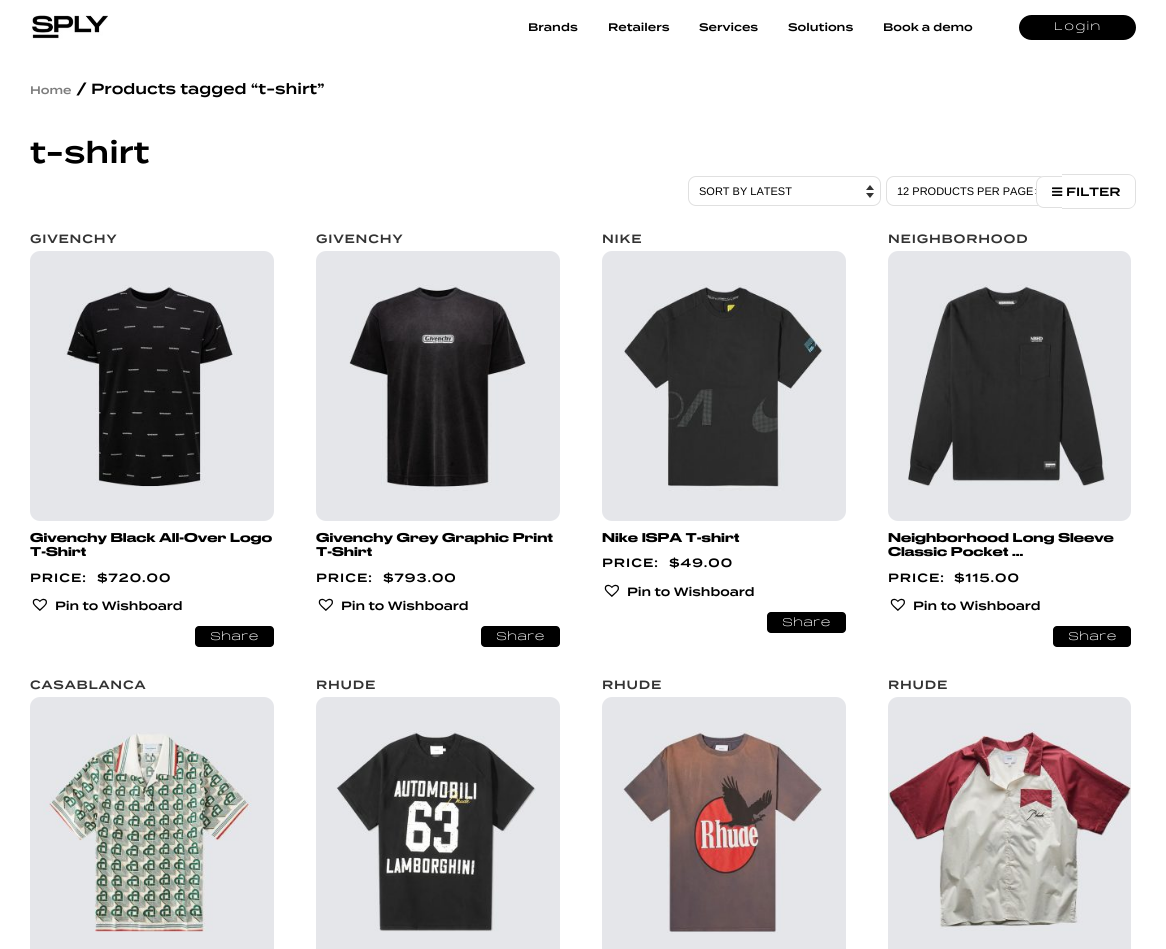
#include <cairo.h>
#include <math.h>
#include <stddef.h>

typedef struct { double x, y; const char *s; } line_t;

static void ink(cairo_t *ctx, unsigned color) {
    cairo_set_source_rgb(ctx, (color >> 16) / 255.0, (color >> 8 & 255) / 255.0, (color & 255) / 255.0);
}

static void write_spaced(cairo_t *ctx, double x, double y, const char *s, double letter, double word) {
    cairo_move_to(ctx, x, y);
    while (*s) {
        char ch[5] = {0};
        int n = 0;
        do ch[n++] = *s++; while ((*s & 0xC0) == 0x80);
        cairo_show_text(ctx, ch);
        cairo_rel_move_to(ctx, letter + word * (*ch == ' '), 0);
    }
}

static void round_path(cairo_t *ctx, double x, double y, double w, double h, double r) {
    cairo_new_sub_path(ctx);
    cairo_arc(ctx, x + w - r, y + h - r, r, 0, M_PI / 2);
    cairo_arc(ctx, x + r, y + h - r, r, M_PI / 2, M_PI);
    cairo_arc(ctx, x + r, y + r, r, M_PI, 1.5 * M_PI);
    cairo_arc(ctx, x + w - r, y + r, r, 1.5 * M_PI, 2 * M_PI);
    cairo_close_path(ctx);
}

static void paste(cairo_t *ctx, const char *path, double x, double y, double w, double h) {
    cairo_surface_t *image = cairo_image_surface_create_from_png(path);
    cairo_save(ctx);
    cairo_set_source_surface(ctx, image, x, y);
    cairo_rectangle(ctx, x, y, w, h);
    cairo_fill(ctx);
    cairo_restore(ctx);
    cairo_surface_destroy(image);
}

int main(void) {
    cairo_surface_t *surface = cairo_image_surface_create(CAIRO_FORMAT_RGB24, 1166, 949);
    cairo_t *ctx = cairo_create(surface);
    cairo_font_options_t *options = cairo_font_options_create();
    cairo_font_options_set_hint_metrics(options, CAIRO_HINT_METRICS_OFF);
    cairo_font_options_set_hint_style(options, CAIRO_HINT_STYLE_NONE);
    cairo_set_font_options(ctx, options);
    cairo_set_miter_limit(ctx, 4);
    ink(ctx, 0xFFFFFF);
    cairo_paint(ctx);
    paste(ctx, "media/1.png", 31, 15, 77, 24);
    cairo_select_font_face(ctx, "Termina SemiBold", CAIRO_FONT_SLANT_NORMAL, CAIRO_FONT_WEIGHT_NORMAL);
    cairo_set_font_size(ctx, 11);
    ink(ctx, 0x000000);
    {
        static const line_t items[] = {
            {528, 31, "Brands"},
            {608, 31, "Retailers"},
            {699, 31, "Services"},
            {788, 31, "Solutions"},
            {883, 31, "Book a demo"},
        };
        for (size_t i = 0; i < sizeof items / sizeof *items; i++) {
            cairo_move_to(ctx, items[i].x, items[i].y);
            cairo_show_text(ctx, items[i].s);
        }
    }
    round_path(ctx, 1019, 15, 117, 25, 12.5);
    cairo_fill(ctx);
    cairo_select_font_face(ctx, "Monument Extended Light", CAIRO_FONT_SLANT_NORMAL, CAIRO_FONT_WEIGHT_NORMAL);
    ink(ctx, 0xFFFFFF);
    write_spaced(ctx, 1054, 30, "Login", 1, 0);
    cairo_select_font_face(ctx, "Termina SemiBold", CAIRO_FONT_SLANT_NORMAL, CAIRO_FONT_WEIGHT_NORMAL);
    ink(ctx, 0x7D7D7D);
    cairo_move_to(ctx, 30, 94);
    cairo_show_text(ctx, "Home");
    cairo_set_font_size(ctx, 14.75);
    ink(ctx, 0x000000);
    cairo_move_to(ctx, 76, 94);
    cairo_show_text(ctx, "/ Products tagged “t-shirt”");
    cairo_set_font_size(ctx, 30);
    cairo_move_to(ctx, 30, 163);
    cairo_show_text(ctx, "t-shirt");
    paste(ctx, "media/4.png", 1035, 189, 1, 5);
    round_path(ctx, 886.5, 176.5, 163, 29, 7.5);
    ink(ctx, 0xE0E0E0);
    cairo_set_line_width(ctx, 1);
    cairo_stroke(ctx);
    ink(ctx, 0xFFFFFF);
    cairo_new_path(ctx);
    cairo_move_to(ctx, 1044, 176);
    cairo_line_to(ctx, 1062, 176);
    cairo_line_to(ctx, 1062, 208);
    cairo_line_to(ctx, 1044, 208);
    cairo_curve_to(ctx, 1039.5, 208, 1036, 204.5, 1036, 200);
    cairo_line_to(ctx, 1036, 184);
    cairo_curve_to(ctx, 1036, 179.5, 1039.5, 176, 1044, 176);
    cairo_close_path(ctx);
    cairo_fill(ctx);
    ink(ctx, 0xE0E0E0);
    cairo_set_fill_rule(ctx, CAIRO_FILL_RULE_EVEN_ODD);
    cairo_new_path(ctx);
    cairo_move_to(ctx, 1044, 176);
    cairo_line_to(ctx, 1062, 176);
    cairo_line_to(ctx, 1062, 208);
    cairo_line_to(ctx, 1044, 208);
    cairo_curve_to(ctx, 1039.5, 208, 1036, 204.5, 1036, 200);
    cairo_line_to(ctx, 1036, 184);
    cairo_curve_to(ctx, 1036, 179.5, 1039.5, 176, 1044, 176);
    cairo_close_path(ctx);
    cairo_move_to(ctx, 1044, 177);
    cairo_line_to(ctx, 1062, 177);
    cairo_line_to(ctx, 1062, 207);
    cairo_line_to(ctx, 1044, 207);
    cairo_curve_to(ctx, 1040, 207, 1037, 204, 1037, 200);
    cairo_line_to(ctx, 1037, 184);
    cairo_curve_to(ctx, 1037, 180, 1040, 177, 1044, 177);
    cairo_close_path(ctx);
    cairo_fill(ctx);
    cairo_new_path(ctx);
    cairo_move_to(ctx, 1062, 174);
    cairo_line_to(ctx, 1128, 174);
    cairo_curve_to(ctx, 1132, 174, 1136, 178, 1136, 182);
    cairo_line_to(ctx, 1136, 201);
    cairo_curve_to(ctx, 1136, 205, 1132, 209, 1128, 209);
    cairo_line_to(ctx, 1062, 209);
    cairo_close_path(ctx);
    cairo_move_to(ctx, 1062, 175);
    cairo_line_to(ctx, 1128, 175);
    cairo_curve_to(ctx, 1132, 175, 1135, 178, 1135, 182);
    cairo_line_to(ctx, 1135, 201);
    cairo_curve_to(ctx, 1135, 205, 1132, 208, 1128, 208);
    cairo_line_to(ctx, 1062, 208);
    cairo_close_path(ctx);
    cairo_fill(ctx);
    paste(ctx, "media/2.png", 1052, 187, 11, 9);
    cairo_set_font_size(ctx, 12);
    ink(ctx, 0x000000);
    cairo_move_to(ctx, 1066, 196);
    cairo_show_text(ctx, "FILTER");
    paste(ctx, "media/3.png", 866, 185, 8, 13);
    round_path(ctx, 688.5, 176.5, 192, 29, 7.5);
    ink(ctx, 0xE0E0E0);
    cairo_stroke(ctx);
    cairo_select_font_face(ctx, "Liberation Sans", CAIRO_FONT_SLANT_NORMAL, CAIRO_FONT_WEIGHT_NORMAL);
    cairo_set_font_size(ctx, 11);
    ink(ctx, 0x000000);
    cairo_move_to(ctx, 699, 195);
    cairo_show_text(ctx, "SORT BY LATEST");
    cairo_move_to(ctx, 897, 195);
    cairo_show_text(ctx, "12 PRODUCTS PER PAGE");
    cairo_select_font_face(ctx, "Termina SemiBold", CAIRO_FONT_SLANT_NORMAL, CAIRO_FONT_WEIGHT_NORMAL);
    cairo_set_font_size(ctx, 12);
    ink(ctx, 0x333333);
    write_spaced(ctx, 30, 243, "GIVENCHY", 0.8, 0);
    ink(ctx, 0xE5E6EA);
    round_path(ctx, 30, 251, 244, 270, 10);
    cairo_fill(ctx);
    paste(ctx, "media/5.png", 64, 285, 173, 202);
    cairo_select_font_face(ctx, "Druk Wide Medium", CAIRO_FONT_SLANT_NORMAL, CAIRO_FONT_WEIGHT_NORMAL);
    ink(ctx, 0x000000);
    cairo_move_to(ctx, 30, 542);
    cairo_show_text(ctx, "Givenchy Black All-Over Logo");
    cairo_move_to(ctx, 30, 556);
    cairo_show_text(ctx, "T-Shirt");
    cairo_select_font_face(ctx, "Termina SemiBold", CAIRO_FONT_SLANT_NORMAL, CAIRO_FONT_WEIGHT_NORMAL);
    write_spaced(ctx, 30, 582, "PRICE:", 1, 0);
    write_spaced(ctx, 97, 582, "$720.00", 1, 0);
    paste(ctx, "media/6.png", 32, 598, 15, 13);
    cairo_move_to(ctx, 55, 610);
    cairo_show_text(ctx, "Pin to Wishboard");
    round_path(ctx, 195, 626, 79, 21, 4);
    cairo_fill(ctx);
    cairo_select_font_face(ctx, "Monument Extended Light", CAIRO_FONT_SLANT_NORMAL, CAIRO_FONT_WEIGHT_NORMAL);
    cairo_set_font_size(ctx, 11);
    ink(ctx, 0xFFFFFF);
    cairo_move_to(ctx, 210, 640);
    cairo_show_text(ctx, "Share");
    cairo_select_font_face(ctx, "Termina SemiBold", CAIRO_FONT_SLANT_NORMAL, CAIRO_FONT_WEIGHT_NORMAL);
    cairo_set_font_size(ctx, 12);
    ink(ctx, 0x333333);
    write_spaced(ctx, 316, 243, "GIVENCHY", 0.8, 0);
    ink(ctx, 0xE5E6EA);
    round_path(ctx, 316, 251, 244, 270, 10);
    cairo_fill(ctx);
    paste(ctx, "media/7.png", 349, 284, 181, 207);
    cairo_select_font_face(ctx, "Druk Wide Medium", CAIRO_FONT_SLANT_NORMAL, CAIRO_FONT_WEIGHT_NORMAL);
    ink(ctx, 0x000000);
    cairo_move_to(ctx, 316, 542);
    cairo_show_text(ctx, "Givenchy Grey Graphic Print");
    cairo_move_to(ctx, 316, 556);
    cairo_show_text(ctx, "T-Shirt");
    cairo_select_font_face(ctx, "Termina SemiBold", CAIRO_FONT_SLANT_NORMAL, CAIRO_FONT_WEIGHT_NORMAL);
    write_spaced(ctx, 316, 582, "PRICE:", 1, 0);
    write_spaced(ctx, 383, 582, "$793.00", 1, 0);
    paste(ctx, "media/6.png", 318, 598, 15, 13);
    cairo_move_to(ctx, 341, 610);
    cairo_show_text(ctx, "Pin to Wishboard");
    round_path(ctx, 481, 626, 79, 21, 4);
    cairo_fill(ctx);
    cairo_select_font_face(ctx, "Monument Extended Light", CAIRO_FONT_SLANT_NORMAL, CAIRO_FONT_WEIGHT_NORMAL);
    cairo_set_font_size(ctx, 11);
    ink(ctx, 0xFFFFFF);
    cairo_move_to(ctx, 496, 640);
    cairo_show_text(ctx, "Share");
    cairo_select_font_face(ctx, "Termina SemiBold", CAIRO_FONT_SLANT_NORMAL, CAIRO_FONT_WEIGHT_NORMAL);
    cairo_set_font_size(ctx, 12);
    ink(ctx, 0x333333);
    write_spaced(ctx, 602, 243, "NIKE", 0.8, 0);
    ink(ctx, 0xE5E6EA);
    round_path(ctx, 602, 251, 244, 270, 10);
    cairo_fill(ctx);
    paste(ctx, "media/8.png", 623, 284, 201, 207);
    cairo_select_font_face(ctx, "Druk Wide Medium", CAIRO_FONT_SLANT_NORMAL, CAIRO_FONT_WEIGHT_NORMAL);
    ink(ctx, 0x000000);
    cairo_move_to(ctx, 602, 542);
    cairo_show_text(ctx, "Nike ISPA T-shirt");
    cairo_select_font_face(ctx, "Termina SemiBold", CAIRO_FONT_SLANT_NORMAL, CAIRO_FONT_WEIGHT_NORMAL);
    write_spaced(ctx, 602, 567, "PRICE:", 1, 0);
    write_spaced(ctx, 669, 567, "$49.00", 1, 0);
    paste(ctx, "media/6.png", 604, 584, 15, 13);
    cairo_move_to(ctx, 627, 596);
    cairo_show_text(ctx, "Pin to Wishboard");
    round_path(ctx, 767, 612, 79, 21, 4);
    cairo_fill(ctx);
    cairo_select_font_face(ctx, "Monument Extended Light", CAIRO_FONT_SLANT_NORMAL, CAIRO_FONT_WEIGHT_NORMAL);
    cairo_set_font_size(ctx, 11);
    ink(ctx, 0xFFFFFF);
    cairo_move_to(ctx, 782, 626);
    cairo_show_text(ctx, "Share");
    cairo_select_font_face(ctx, "Termina SemiBold", CAIRO_FONT_SLANT_NORMAL, CAIRO_FONT_WEIGHT_NORMAL);
    cairo_set_font_size(ctx, 12);
    ink(ctx, 0x333333);
    write_spaced(ctx, 888, 243, "NEIGHBORHOOD", 0.8, 0);
    ink(ctx, 0xE5E6EA);
    round_path(ctx, 888, 251, 243, 270, 10);
    cairo_fill(ctx);
    paste(ctx, "media/9.png", 908, 284, 200, 203);
    cairo_select_font_face(ctx, "Druk Wide Medium", CAIRO_FONT_SLANT_NORMAL, CAIRO_FONT_WEIGHT_NORMAL);
    ink(ctx, 0x000000);
    cairo_move_to(ctx, 888, 542);
    cairo_show_text(ctx, "Neighborhood Long Sleeve");
    cairo_move_to(ctx, 888, 556);
    cairo_show_text(ctx, "Classic Pocket ...");
    cairo_select_font_face(ctx, "Termina SemiBold", CAIRO_FONT_SLANT_NORMAL, CAIRO_FONT_WEIGHT_NORMAL);
    write_spaced(ctx, 888, 582, "PRICE:", 1, 0);
    write_spaced(ctx, 954, 582, "$115.00", 1, 0);
    paste(ctx, "media/6.png", 890, 598, 15, 13);
    cairo_move_to(ctx, 913, 610);
    cairo_show_text(ctx, "Pin to Wishboard");
    round_path(ctx, 1053, 626, 78, 21, 4);
    cairo_fill(ctx);
    cairo_select_font_face(ctx, "Monument Extended Light", CAIRO_FONT_SLANT_NORMAL, CAIRO_FONT_WEIGHT_NORMAL);
    cairo_set_font_size(ctx, 11);
    ink(ctx, 0xFFFFFF);
    cairo_move_to(ctx, 1068, 640);
    cairo_show_text(ctx, "Share");
    cairo_select_font_face(ctx, "Termina SemiBold", CAIRO_FONT_SLANT_NORMAL, CAIRO_FONT_WEIGHT_NORMAL);
    cairo_set_font_size(ctx, 12);
    ink(ctx, 0x333333);
    write_spaced(ctx, 30, 689, "CASABLANCA", 0.8, 0);
    ink(ctx, 0xE5E6EA);
    round_path(ctx, 30, 697, 244, 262, 10);
    cairo_fill(ctx);
    paste(ctx, "media/10.png", 43, 732, 209, 200);
    ink(ctx, 0x333333);
    write_spaced(ctx, 316, 689, "RHUDE", 0.8, 0);
    ink(ctx, 0xE5E6EA);
    round_path(ctx, 316, 697, 244, 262, 10);
    cairo_fill(ctx);
    paste(ctx, "media/11.png", 336, 730, 200, 202);
    ink(ctx, 0x333333);
    write_spaced(ctx, 602, 689, "RHUDE", 0.8, 0);
    ink(ctx, 0xE5E6EA);
    round_path(ctx, 602, 697, 244, 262, 10);
    cairo_fill(ctx);
    paste(ctx, "media/12.png", 622, 730, 201, 204);
    ink(ctx, 0x333333);
    write_spaced(ctx, 888, 689, "RHUDE", 0.8, 0);
    ink(ctx, 0xE5E6EA);
    round_path(ctx, 888, 697, 243, 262, 10);
    cairo_fill(ctx);
    paste(ctx, "media/13.png", 888, 723, 243, 208);
    cairo_surface_write_to_png(surface, "image.png");
    cairo_font_options_destroy(options);
    cairo_destroy(ctx);
    cairo_surface_destroy(surface);
    return 0;
}
